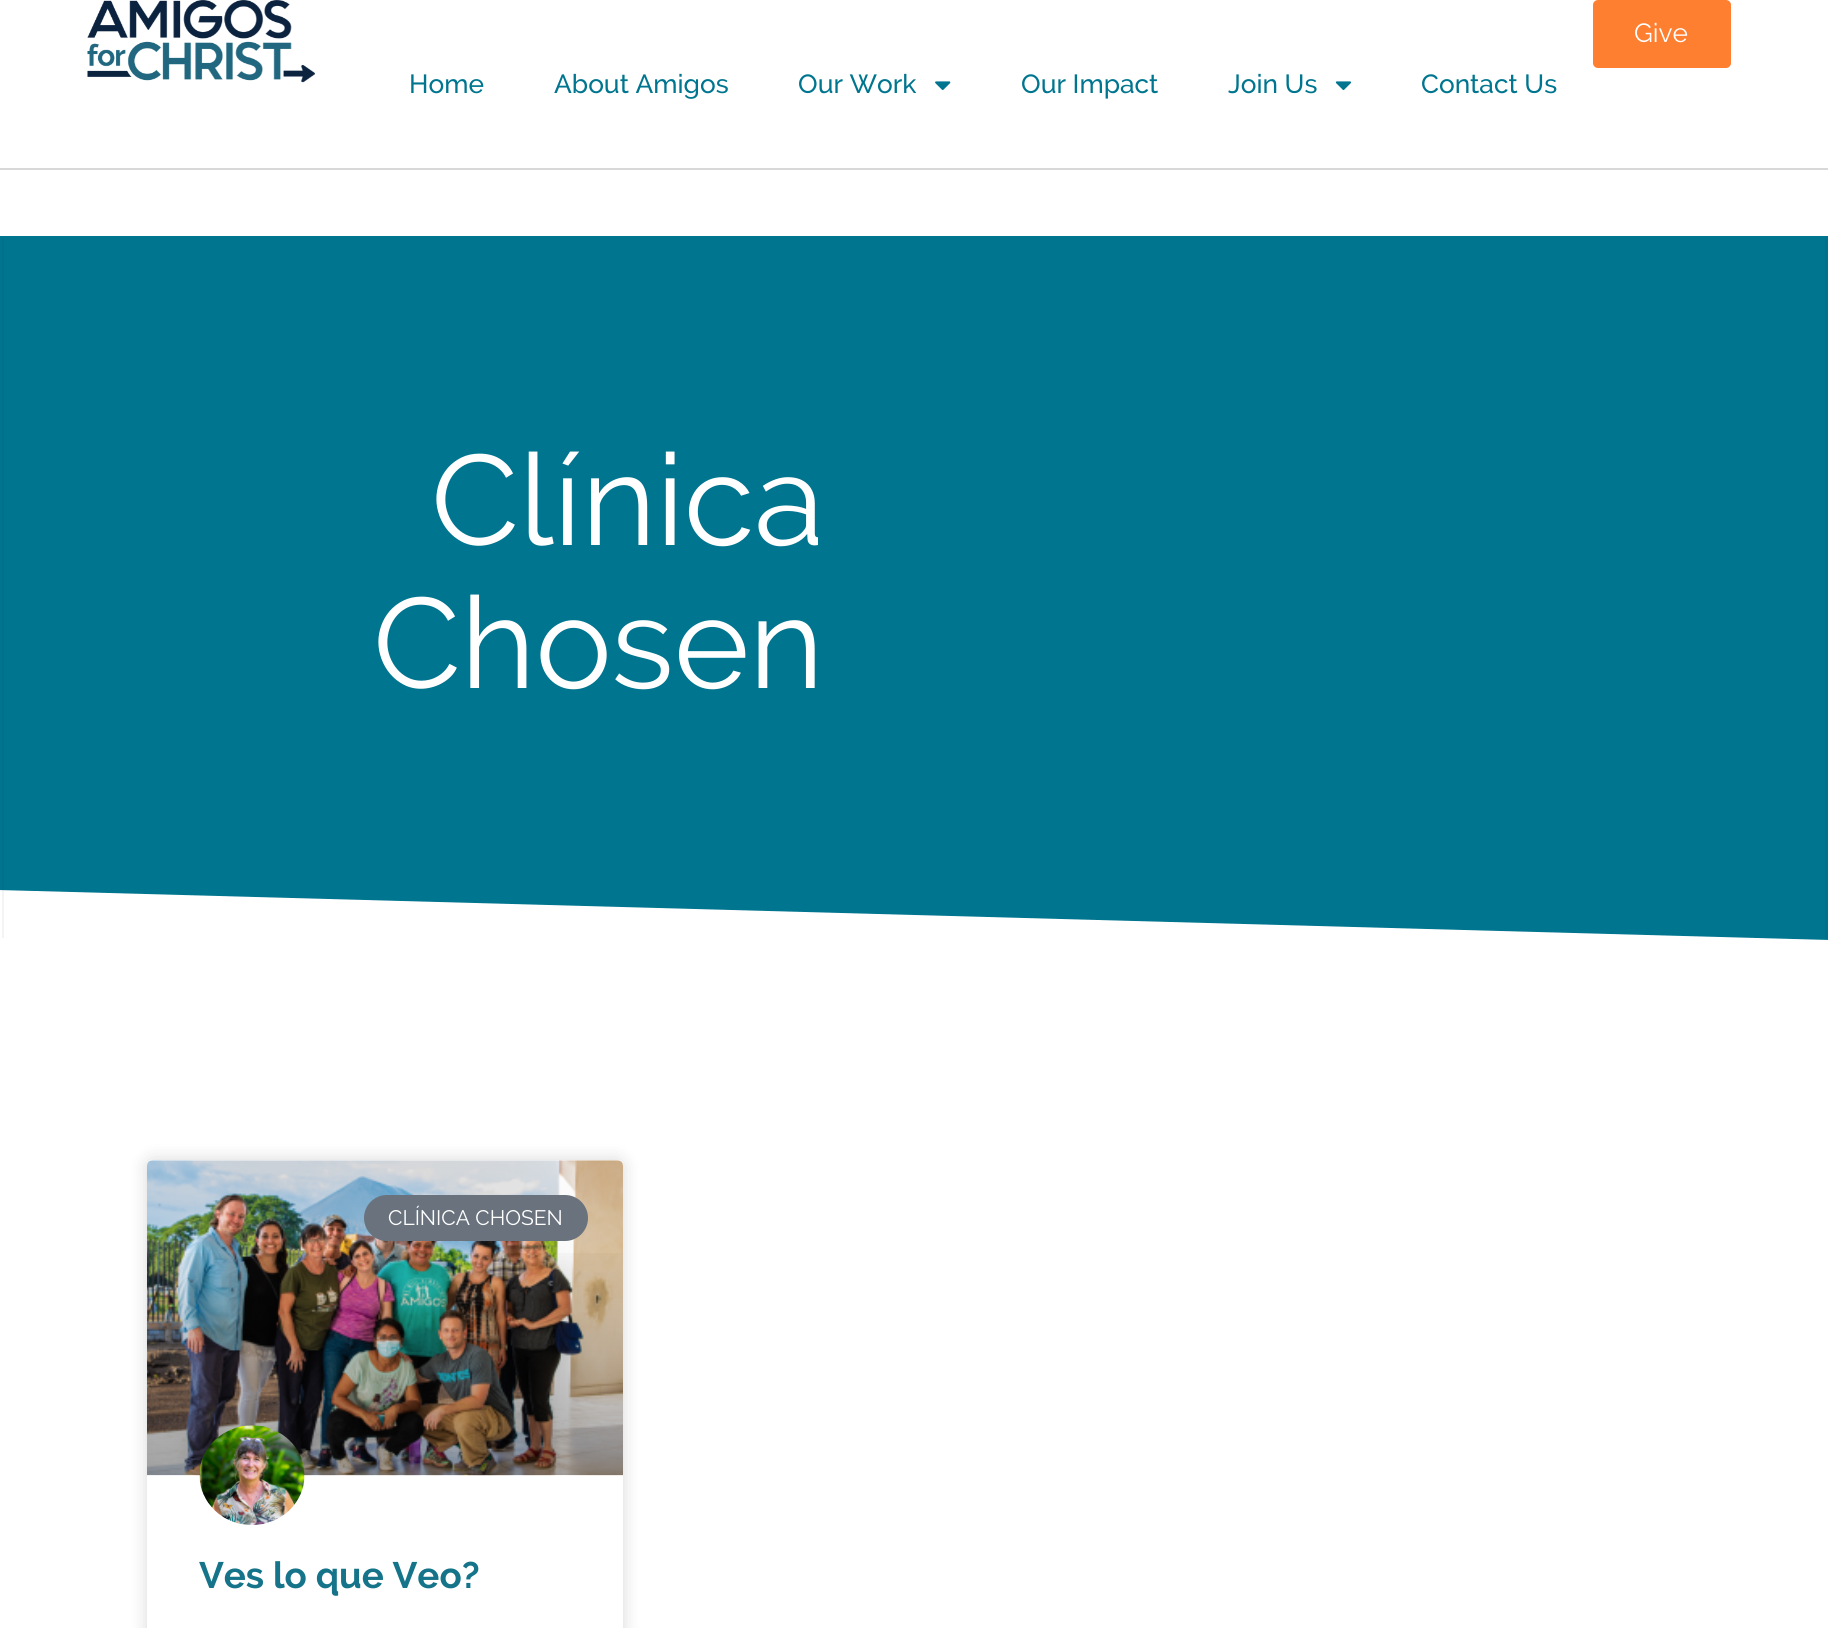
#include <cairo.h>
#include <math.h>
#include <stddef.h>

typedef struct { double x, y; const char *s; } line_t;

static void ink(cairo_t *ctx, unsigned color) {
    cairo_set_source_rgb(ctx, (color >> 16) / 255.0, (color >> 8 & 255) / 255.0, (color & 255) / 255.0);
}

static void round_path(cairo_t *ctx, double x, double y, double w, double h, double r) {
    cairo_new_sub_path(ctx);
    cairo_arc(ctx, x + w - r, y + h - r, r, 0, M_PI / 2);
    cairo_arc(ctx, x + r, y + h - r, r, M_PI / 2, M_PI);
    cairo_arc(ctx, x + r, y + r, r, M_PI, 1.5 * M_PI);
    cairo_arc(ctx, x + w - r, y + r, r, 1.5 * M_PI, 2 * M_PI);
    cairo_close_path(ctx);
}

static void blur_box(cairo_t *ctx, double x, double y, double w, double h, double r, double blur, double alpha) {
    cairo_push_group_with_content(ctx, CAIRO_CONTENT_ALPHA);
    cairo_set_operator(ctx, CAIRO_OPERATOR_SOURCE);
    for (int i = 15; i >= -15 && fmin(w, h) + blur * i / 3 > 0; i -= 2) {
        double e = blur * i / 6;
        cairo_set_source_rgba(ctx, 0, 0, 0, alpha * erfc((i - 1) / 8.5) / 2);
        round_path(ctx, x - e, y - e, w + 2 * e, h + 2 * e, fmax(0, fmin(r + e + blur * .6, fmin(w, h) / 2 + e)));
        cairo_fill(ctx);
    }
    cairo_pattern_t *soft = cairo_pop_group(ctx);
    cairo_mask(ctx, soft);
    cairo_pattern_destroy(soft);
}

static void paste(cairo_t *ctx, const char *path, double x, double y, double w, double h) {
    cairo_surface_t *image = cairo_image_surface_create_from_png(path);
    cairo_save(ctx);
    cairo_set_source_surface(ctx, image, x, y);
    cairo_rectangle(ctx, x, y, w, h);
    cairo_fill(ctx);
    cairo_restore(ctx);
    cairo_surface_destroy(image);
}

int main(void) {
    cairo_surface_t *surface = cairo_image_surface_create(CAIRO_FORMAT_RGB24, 1828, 1628);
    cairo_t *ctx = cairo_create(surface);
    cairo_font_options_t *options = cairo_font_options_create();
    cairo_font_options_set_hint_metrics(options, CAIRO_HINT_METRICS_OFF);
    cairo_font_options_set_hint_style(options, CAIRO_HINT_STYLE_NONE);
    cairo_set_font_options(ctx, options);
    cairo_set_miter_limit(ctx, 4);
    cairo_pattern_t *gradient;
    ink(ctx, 0xFFFFFF);
    cairo_paint(ctx);
    ink(ctx, 0xD8D8D8);
    cairo_rectangle(ctx, 0, 168, 1828, 2);
    cairo_fill(ctx);
    paste(ctx, "media/1.png", 87, 0, 228, 83);
    ink(ctx, 0xFF7F31);
    round_path(ctx, 1593, 0, 138, 68, 5);
    cairo_fill(ctx);
    cairo_select_font_face(ctx, "Raleway", CAIRO_FONT_SLANT_NORMAL, CAIRO_FONT_WEIGHT_NORMAL);
    cairo_set_font_size(ctx, 26.25);
    ink(ctx, 0xFFFFFF);
    cairo_move_to(ctx, 1634, 42);
    cairo_show_text(ctx, "Give");
    cairo_select_font_face(ctx, "Raleway Medium", CAIRO_FONT_SLANT_NORMAL, CAIRO_FONT_WEIGHT_NORMAL);
    ink(ctx, 0x00758F);
    {
        static const line_t items[] = {
            {409, 93, "Home"},
            {554, 93, "About Amigos"},
            {798, 93, "Our Work"},
        };
        for (size_t i = 0; i < sizeof items / sizeof *items; i++) {
            cairo_move_to(ctx, items[i].x, items[i].y);
            cairo_show_text(ctx, items[i].s);
        }
    }
    paste(ctx, "media/2.png", 935, 81, 16, 9);
    cairo_move_to(ctx, 1021, 93);
    cairo_show_text(ctx, "Our Impact");
    cairo_move_to(ctx, 1228, 93);
    cairo_show_text(ctx, "Join Us");
    paste(ctx, "media/3.png", 1335, 81, 16, 9);
    cairo_move_to(ctx, 1421, 93);
    cairo_show_text(ctx, "Contact Us");
    cairo_rectangle(ctx, 0, 236, 1828, 704);
    cairo_fill(ctx);
    cairo_save(ctx);
    cairo_rectangle(ctx, 0, 889, 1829, 53);
    cairo_clip(ctx);
    ink(ctx, 0xFFFFFF);
    cairo_new_path(ctx);
    cairo_move_to(ctx, 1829, 940);
    cairo_line_to(ctx, 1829, 943);
    cairo_line_to(ctx, -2, 943);
    cairo_line_to(ctx, -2, 890);
    cairo_close_path(ctx);
    cairo_fill(ctx);
    cairo_restore(ctx);
    cairo_set_source_rgba(ctx, 0.004, 0.086, 0.251, 0.05);
    cairo_rectangle(ctx, 2, 238, 2, 700);
    cairo_fill(ctx);
    cairo_select_font_face(ctx, "Raleway", CAIRO_FONT_SLANT_NORMAL, CAIRO_FONT_WEIGHT_NORMAL);
    cairo_set_font_size(ctx, 128);
    ink(ctx, 0xFFFFFF);
    cairo_move_to(ctx, 431, 545);
    cairo_show_text(ctx, "Clínica");
    cairo_move_to(ctx, 373, 688);
    cairo_show_text(ctx, "Chosen");
    ink(ctx, 0x00708B);
    cairo_rectangle(ctx, 1825, 238, 2, 700);
    cairo_fill(ctx);
    ink(ctx, 0x000000);
    blur_box(ctx, 147, 1160, 476, 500, 5, 9, 0.15);
    ink(ctx, 0xFFFFFF);
    round_path(ctx, 147, 1160, 476, 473, 5);
    cairo_fill(ctx);
    paste(ctx, "media/4.png", 147, 1160, 476, 316);
    gradient = cairo_pattern_create_linear(385, 1475, 385, 1160);
    cairo_pattern_add_color_stop_rgba(gradient, 0, 0, 0, 0, 0.35);
    cairo_pattern_add_color_stop_rgba(gradient, 0.75, 0, 0, 0, 0);
    cairo_set_source(ctx, gradient);
    cairo_pattern_destroy(gradient);
    cairo_rectangle(ctx, 147, 1253, 476, 222);
    cairo_fill(ctx);
    ink(ctx, 0x69727D);
    round_path(ctx, 364, 1195, 224, 46, 23);
    cairo_fill(ctx);
    cairo_set_font_size(ctx, 21);
    ink(ctx, 0xFFFFFF);
    cairo_move_to(ctx, 388, 1225);
    cairo_show_text(ctx, "CLÍNICA CHOSEN");
    paste(ctx, "media/5.png", 199, 1425, 106, 100);
    cairo_select_font_face(ctx, "Raleway", CAIRO_FONT_SLANT_NORMAL, CAIRO_FONT_WEIGHT_BOLD);
    cairo_set_font_size(ctx, 36.75);
    ink(ctx, 0x157489);
    cairo_move_to(ctx, 199, 1588);
    cairo_show_text(ctx, "Ves lo que Veo?");
    cairo_surface_write_to_png(surface, "image.png");
    cairo_font_options_destroy(options);
    cairo_destroy(ctx);
    cairo_surface_destroy(surface);
    return 0;
}
